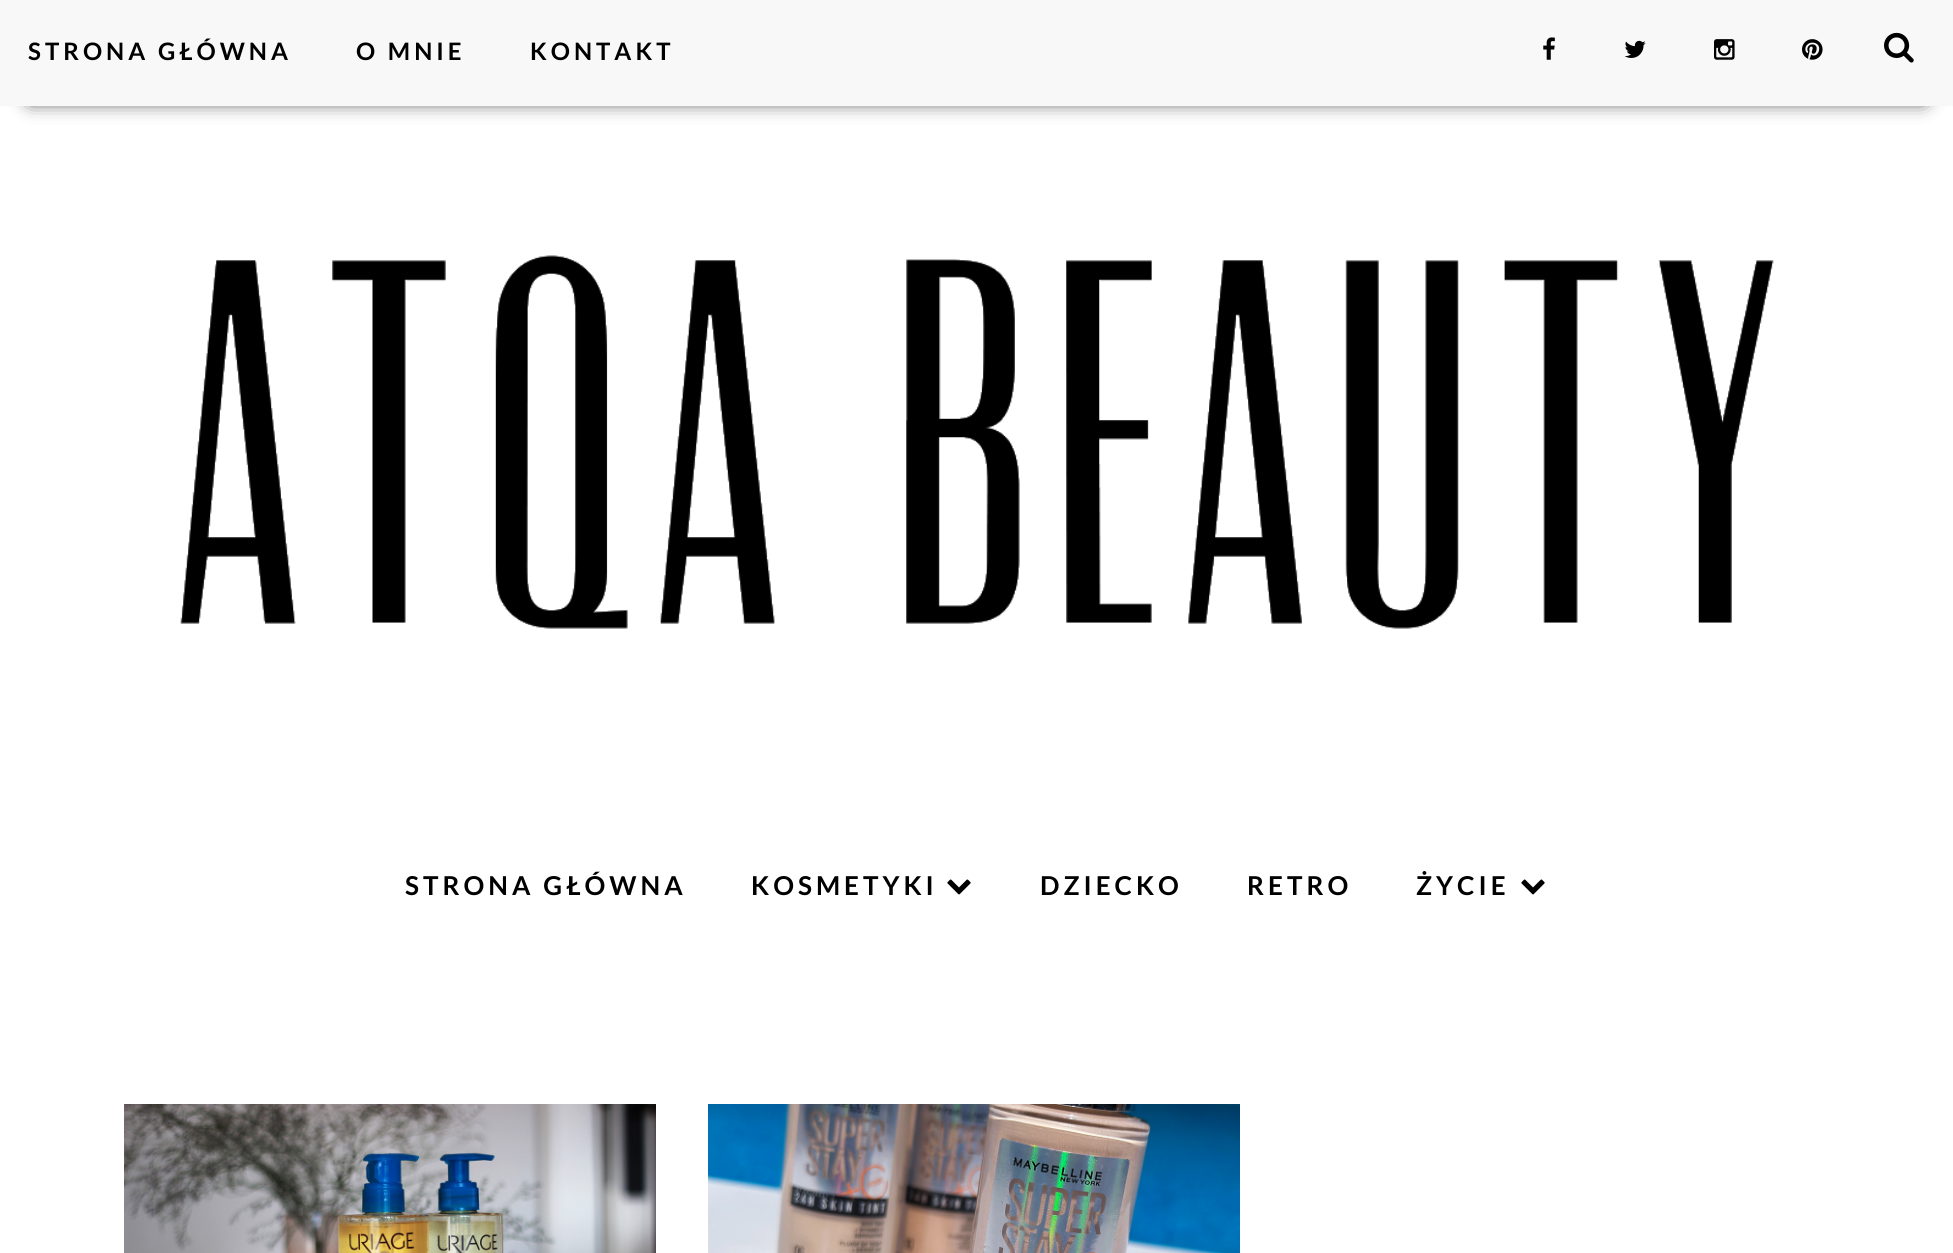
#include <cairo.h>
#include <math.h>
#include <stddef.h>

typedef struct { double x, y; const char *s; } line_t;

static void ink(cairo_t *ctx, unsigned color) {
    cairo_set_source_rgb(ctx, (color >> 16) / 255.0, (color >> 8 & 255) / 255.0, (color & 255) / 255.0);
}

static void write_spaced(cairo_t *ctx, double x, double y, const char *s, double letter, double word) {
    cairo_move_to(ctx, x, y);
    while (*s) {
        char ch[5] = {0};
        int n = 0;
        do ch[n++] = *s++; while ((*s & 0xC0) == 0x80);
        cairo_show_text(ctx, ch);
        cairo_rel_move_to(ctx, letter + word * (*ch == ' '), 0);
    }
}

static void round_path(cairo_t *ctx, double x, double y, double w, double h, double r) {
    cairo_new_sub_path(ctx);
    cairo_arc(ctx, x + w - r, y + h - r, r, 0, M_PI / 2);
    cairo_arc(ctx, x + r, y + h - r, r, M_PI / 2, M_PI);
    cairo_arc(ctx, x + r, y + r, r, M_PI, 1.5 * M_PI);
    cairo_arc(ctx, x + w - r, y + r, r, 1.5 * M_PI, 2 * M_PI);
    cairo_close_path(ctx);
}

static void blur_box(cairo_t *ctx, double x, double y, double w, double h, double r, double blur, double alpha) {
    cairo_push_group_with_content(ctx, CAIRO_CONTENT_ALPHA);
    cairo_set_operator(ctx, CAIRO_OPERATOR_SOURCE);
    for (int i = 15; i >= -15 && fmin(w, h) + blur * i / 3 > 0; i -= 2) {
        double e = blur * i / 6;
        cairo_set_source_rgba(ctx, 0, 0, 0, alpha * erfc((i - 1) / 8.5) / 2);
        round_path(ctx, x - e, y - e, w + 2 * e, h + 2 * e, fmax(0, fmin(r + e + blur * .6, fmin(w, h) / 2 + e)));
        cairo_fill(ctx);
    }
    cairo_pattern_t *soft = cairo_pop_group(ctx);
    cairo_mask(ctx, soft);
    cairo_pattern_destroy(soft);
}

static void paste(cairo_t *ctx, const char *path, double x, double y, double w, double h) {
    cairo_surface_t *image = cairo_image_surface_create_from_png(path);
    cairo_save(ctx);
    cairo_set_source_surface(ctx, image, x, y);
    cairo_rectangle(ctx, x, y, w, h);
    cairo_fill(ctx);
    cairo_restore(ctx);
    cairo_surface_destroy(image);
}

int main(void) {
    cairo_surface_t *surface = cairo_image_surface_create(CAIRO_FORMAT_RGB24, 1953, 1253);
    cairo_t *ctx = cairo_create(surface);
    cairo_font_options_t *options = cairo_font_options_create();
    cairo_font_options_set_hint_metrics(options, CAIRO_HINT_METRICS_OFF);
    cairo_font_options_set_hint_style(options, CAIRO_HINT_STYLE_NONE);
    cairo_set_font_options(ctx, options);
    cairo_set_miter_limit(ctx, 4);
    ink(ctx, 0xFFFFFF);
    cairo_paint(ctx);
    ink(ctx, 0x111111);
    blur_box(ctx, 30, 54, 1894, 46, 0, 10, 1);
    ink(ctx, 0xF8F8F8);
    cairo_rectangle(ctx, 0, 0, 1953, 106);
    cairo_fill(ctx);
    cairo_select_font_face(ctx, "Lato", CAIRO_FONT_SLANT_NORMAL, CAIRO_FONT_WEIGHT_BOLD);
    cairo_set_font_size(ctx, 24);
    ink(ctx, 0x000000);
    {
        static const line_t items[] = {
            {28, 60, "STRONA GŁÓWNA"},
            {356, 60, "O MNIE"},
            {530, 60, "KONTAKT"},
        };
        for (size_t i = 0; i < sizeof items / sizeof *items; i++) {
            write_spaced(ctx, items[i].x, items[i].y, items[i].s, 4, 0);
        }
    }
    paste(ctx, "media/1.png", 1543, 37, 12, 23);
    paste(ctx, "media/2.png", 1624, 40, 22, 18);
    paste(ctx, "media/3.png", 1714, 39, 21, 21);
    paste(ctx, "media/4.png", 1802, 39, 21, 21);
    paste(ctx, "media/5.png", 1884, 32, 30, 31);
    paste(ctx, "media/6.png", 180, 255, 1594, 374);
    cairo_set_font_size(ctx, 26);
    write_spaced(ctx, 405, 895, "STRONA GŁÓWNA", 4, 0);
    write_spaced(ctx, 751, 895, "KOSMETYKI", 4, 0);
    paste(ctx, "media/7.png", 947, 879, 24, 16);
    {
        static const line_t items[] = {
            {1040, 895, "DZIECKO"},
            {1247, 895, "RETRO"},
            {1416, 895, "ŻYCIE"},
        };
        for (size_t i = 0; i < sizeof items / sizeof *items; i++) {
            write_spaced(ctx, items[i].x, items[i].y, items[i].s, 4, 0);
        }
    }
    paste(ctx, "media/7.png", 1521, 879, 24, 16);
    paste(ctx, "media/8.png", 124, 1104, 532, 149);
    paste(ctx, "media/9.png", 708, 1104, 532, 149);
    cairo_surface_write_to_png(surface, "image.png");
    cairo_font_options_destroy(options);
    cairo_destroy(ctx);
    cairo_surface_destroy(surface);
    return 0;
}
